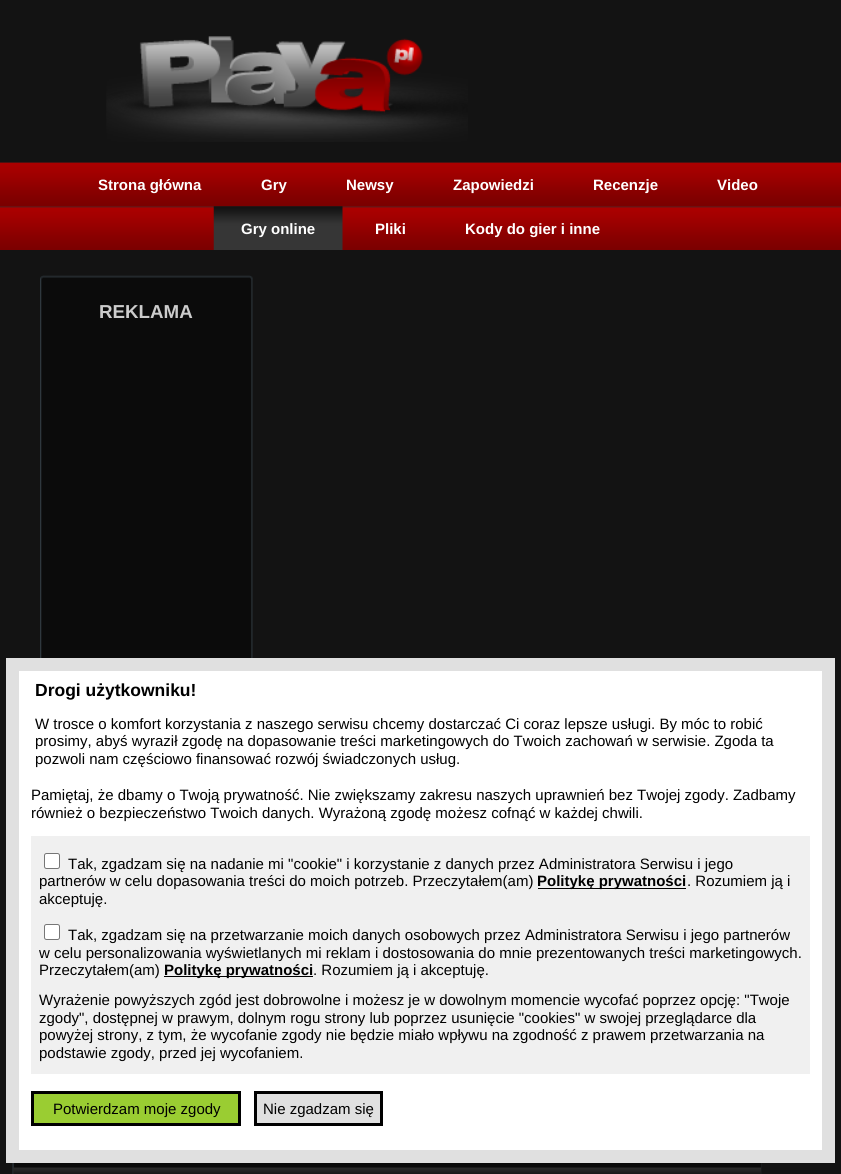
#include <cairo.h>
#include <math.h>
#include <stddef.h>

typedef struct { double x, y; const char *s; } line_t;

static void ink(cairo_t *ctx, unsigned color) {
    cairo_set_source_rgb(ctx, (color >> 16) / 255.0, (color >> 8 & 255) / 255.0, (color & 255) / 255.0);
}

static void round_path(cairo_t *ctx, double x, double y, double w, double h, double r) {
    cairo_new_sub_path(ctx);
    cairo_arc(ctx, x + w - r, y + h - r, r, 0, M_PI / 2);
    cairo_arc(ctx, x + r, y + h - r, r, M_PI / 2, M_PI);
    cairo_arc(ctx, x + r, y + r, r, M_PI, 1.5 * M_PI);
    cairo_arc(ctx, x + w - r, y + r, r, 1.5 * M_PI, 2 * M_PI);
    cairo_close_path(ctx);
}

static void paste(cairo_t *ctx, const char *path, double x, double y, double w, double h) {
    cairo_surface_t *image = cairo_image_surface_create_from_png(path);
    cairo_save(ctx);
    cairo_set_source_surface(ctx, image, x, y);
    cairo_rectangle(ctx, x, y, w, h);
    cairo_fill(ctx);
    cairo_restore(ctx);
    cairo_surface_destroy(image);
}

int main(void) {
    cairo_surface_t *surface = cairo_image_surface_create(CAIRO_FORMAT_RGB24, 841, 1174);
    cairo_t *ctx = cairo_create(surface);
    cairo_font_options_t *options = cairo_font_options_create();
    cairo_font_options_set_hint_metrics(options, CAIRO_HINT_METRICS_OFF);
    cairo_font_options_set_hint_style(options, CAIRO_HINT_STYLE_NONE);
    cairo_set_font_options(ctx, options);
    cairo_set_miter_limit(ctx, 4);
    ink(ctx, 0x131313);
    cairo_paint(ctx);
    paste(ctx, "media/1.png", 106, 36, 362, 106);
    paste(ctx, "media/2.png", 0, 162, 841, 88);
    cairo_select_font_face(ctx, "Liberation Sans", CAIRO_FONT_SLANT_NORMAL, CAIRO_FONT_WEIGHT_BOLD);
    cairo_set_font_size(ctx, 15);
    ink(ctx, 0xFFFFFF);
    {
        static const line_t items[] = {
            {98, 190, "Strona główna"},
            {261, 190, "Gry"},
            {346, 190, "Newsy"},
            {453, 190, "Zapowiedzi"},
            {593, 190, "Recenzje"},
            {717, 190, "Video"},
        };
        for (size_t i = 0; i < sizeof items / sizeof *items; i++) {
            cairo_move_to(ctx, items[i].x, items[i].y);
            cairo_show_text(ctx, items[i].s);
        }
    }
    paste(ctx, "media/3.png", 213, 206, 130, 44);
    {
        static const line_t items[] = {
            {241, 234, "Gry online"},
            {375, 234, "Pliki"},
            {465, 234, "Kody do gier i inne"},
        };
        for (size_t i = 0; i < sizeof items / sizeof *items; i++) {
            cairo_move_to(ctx, items[i].x, items[i].y);
            cairo_show_text(ctx, items[i].s);
        }
    }
    paste(ctx, "media/4.png", 40, 275, 213, 25);
    paste(ctx, "media/5.png", 40, 300, 213, 358);
    cairo_set_font_size(ctx, 18.75);
    ink(ctx, 0xCCCCCC);
    cairo_move_to(ctx, 99, 318);
    cairo_show_text(ctx, "REKLAMA");
    paste(ctx, "media/6.png", 12, 1163, 750, 11);
    paste(ctx, "media/7.png", 13, 1167, 748, 7);
    ink(ctx, 0xFFFFFF);
    cairo_rectangle(ctx, 12.5, 664.5, 816, 492);
    cairo_fill_preserve(ctx);
    ink(ctx, 0xE0E0E0);
    cairo_set_line_width(ctx, 13);
    cairo_stroke(ctx);
    cairo_set_font_size(ctx, 17.5);
    ink(ctx, 0x000000);
    cairo_move_to(ctx, 35, 696);
    cairo_show_text(ctx, "Drogi użytkowniku!");
    cairo_select_font_face(ctx, "Liberation Sans", CAIRO_FONT_SLANT_NORMAL, CAIRO_FONT_WEIGHT_NORMAL);
    cairo_set_font_size(ctx, 15);
    {
        static const line_t items[] = {
            {35, 729, "W trosce o komfort korzystania z naszego serwisu chcemy dostarczać Ci coraz lepsze usługi. By móc to robić"},
            {35, 746, "prosimy, abyś wyraził zgodę na dopasowanie treści marketingowych do Twoich zachowań w serwisie. Zgoda ta"},
            {35, 764, "pozwoli nam częściowo finansować rozwój świadczonych usług."},
            {31, 800, "Pamiętaj, że dbamy o Twoją prywatność. Nie zwiększamy zakresu naszych uprawnień bez Twojej zgody. Zadbamy"},
            {31, 818, "również o bezpieczeństwo Twoich danych. Wyrażoną zgodę możesz cofnąć w każdej chwili."},
        };
        for (size_t i = 0; i < sizeof items / sizeof *items; i++) {
            cairo_move_to(ctx, items[i].x, items[i].y);
            cairo_show_text(ctx, items[i].s);
        }
    }
    ink(ctx, 0xF0F0F0);
    cairo_rectangle(ctx, 31, 836, 779, 238);
    cairo_fill(ctx);
    ink(ctx, 0xFFFFFF);
    round_path(ctx, 44.5, 853.5, 15, 15, 2);
    cairo_fill_preserve(ctx);
    ink(ctx, 0x767676);
    cairo_set_line_width(ctx, 1);
    cairo_stroke(ctx);
    ink(ctx, 0x000000);
    cairo_move_to(ctx, 68, 869);
    cairo_show_text(ctx, "Tak, zgadzam się na nadanie mi \"cookie\" i korzystanie z danych przez Administratora Serwisu i jego");
    cairo_move_to(ctx, 39, 886);
    cairo_show_text(ctx, "partnerów w celu dopasowania treści do moich potrzeb. Przeczytałem(am)");
    cairo_rectangle(ctx, 538, 888, 148, 1);
    cairo_fill(ctx);
    cairo_select_font_face(ctx, "Liberation Sans", CAIRO_FONT_SLANT_NORMAL, CAIRO_FONT_WEIGHT_BOLD);
    cairo_move_to(ctx, 537, 886);
    cairo_show_text(ctx, "Politykę prywatności");
    cairo_select_font_face(ctx, "Liberation Sans", CAIRO_FONT_SLANT_NORMAL, CAIRO_FONT_WEIGHT_NORMAL);
    cairo_move_to(ctx, 687, 886);
    cairo_show_text(ctx, ". Rozumiem ją i");
    cairo_move_to(ctx, 39, 904);
    cairo_show_text(ctx, "akceptuję.");
    ink(ctx, 0xFFFFFF);
    round_path(ctx, 44.5, 924.5, 15, 15, 2);
    cairo_fill_preserve(ctx);
    ink(ctx, 0x767676);
    cairo_stroke(ctx);
    ink(ctx, 0x000000);
    {
        static const line_t items[] = {
            {68, 940, "Tak, zgadzam się na przetwarzanie moich danych osobowych przez Administratora Serwisu i jego partnerów"},
            {39, 958, "w celu personalizowania wyświetlanych mi reklam i dostosowania do mnie prezentowanych treści marketingowych."},
            {39, 975, "Przeczytałem(am)"},
        };
        for (size_t i = 0; i < sizeof items / sizeof *items; i++) {
            cairo_move_to(ctx, items[i].x, items[i].y);
            cairo_show_text(ctx, items[i].s);
        }
    }
    cairo_rectangle(ctx, 164, 976, 149, 1);
    cairo_fill(ctx);
    cairo_select_font_face(ctx, "Liberation Sans", CAIRO_FONT_SLANT_NORMAL, CAIRO_FONT_WEIGHT_BOLD);
    cairo_move_to(ctx, 164, 975);
    cairo_show_text(ctx, "Politykę prywatności");
    cairo_select_font_face(ctx, "Liberation Sans", CAIRO_FONT_SLANT_NORMAL, CAIRO_FONT_WEIGHT_NORMAL);
    {
        static const line_t items[] = {
            {313, 975, ". Rozumiem ją i akceptuję."},
            {39, 1005, "Wyrażenie powyższych zgód jest dobrowolne i możesz je w dowolnym momencie wycofać poprzez opcję: \"Twoje"},
            {39, 1023, "zgody\", dostępnej w prawym, dolnym rogu strony lub poprzez usunięcie \"cookies\" w swojej przeglądarce dla"},
            {39, 1040, "powyżej strony, z tym, że wycofanie zgody nie będzie miało wpływu na zgodność z prawem przetwarzania na"},
            {39, 1058, "podstawie zgody, przed jej wycofaniem."},
        };
        for (size_t i = 0; i < sizeof items / sizeof *items; i++) {
            cairo_move_to(ctx, items[i].x, items[i].y);
            cairo_show_text(ctx, items[i].s);
        }
    }
    ink(ctx, 0x9ACD32);
    cairo_rectangle(ctx, 32.5, 1092.5, 207, 32);
    cairo_fill_preserve(ctx);
    ink(ctx, 0x000000);
    cairo_set_line_width(ctx, 3);
    cairo_stroke(ctx);
    cairo_move_to(ctx, 53, 1114);
    cairo_show_text(ctx, "Potwierdzam moje zgody");
    ink(ctx, 0xE0E0E0);
    cairo_rectangle(ctx, 255.5, 1092.5, 126, 32);
    cairo_fill_preserve(ctx);
    ink(ctx, 0x000000);
    cairo_stroke(ctx);
    cairo_move_to(ctx, 263, 1114);
    cairo_show_text(ctx, "Nie zgadzam się");
    cairo_surface_write_to_png(surface, "image.png");
    cairo_font_options_destroy(options);
    cairo_destroy(ctx);
    cairo_surface_destroy(surface);
    return 0;
}
